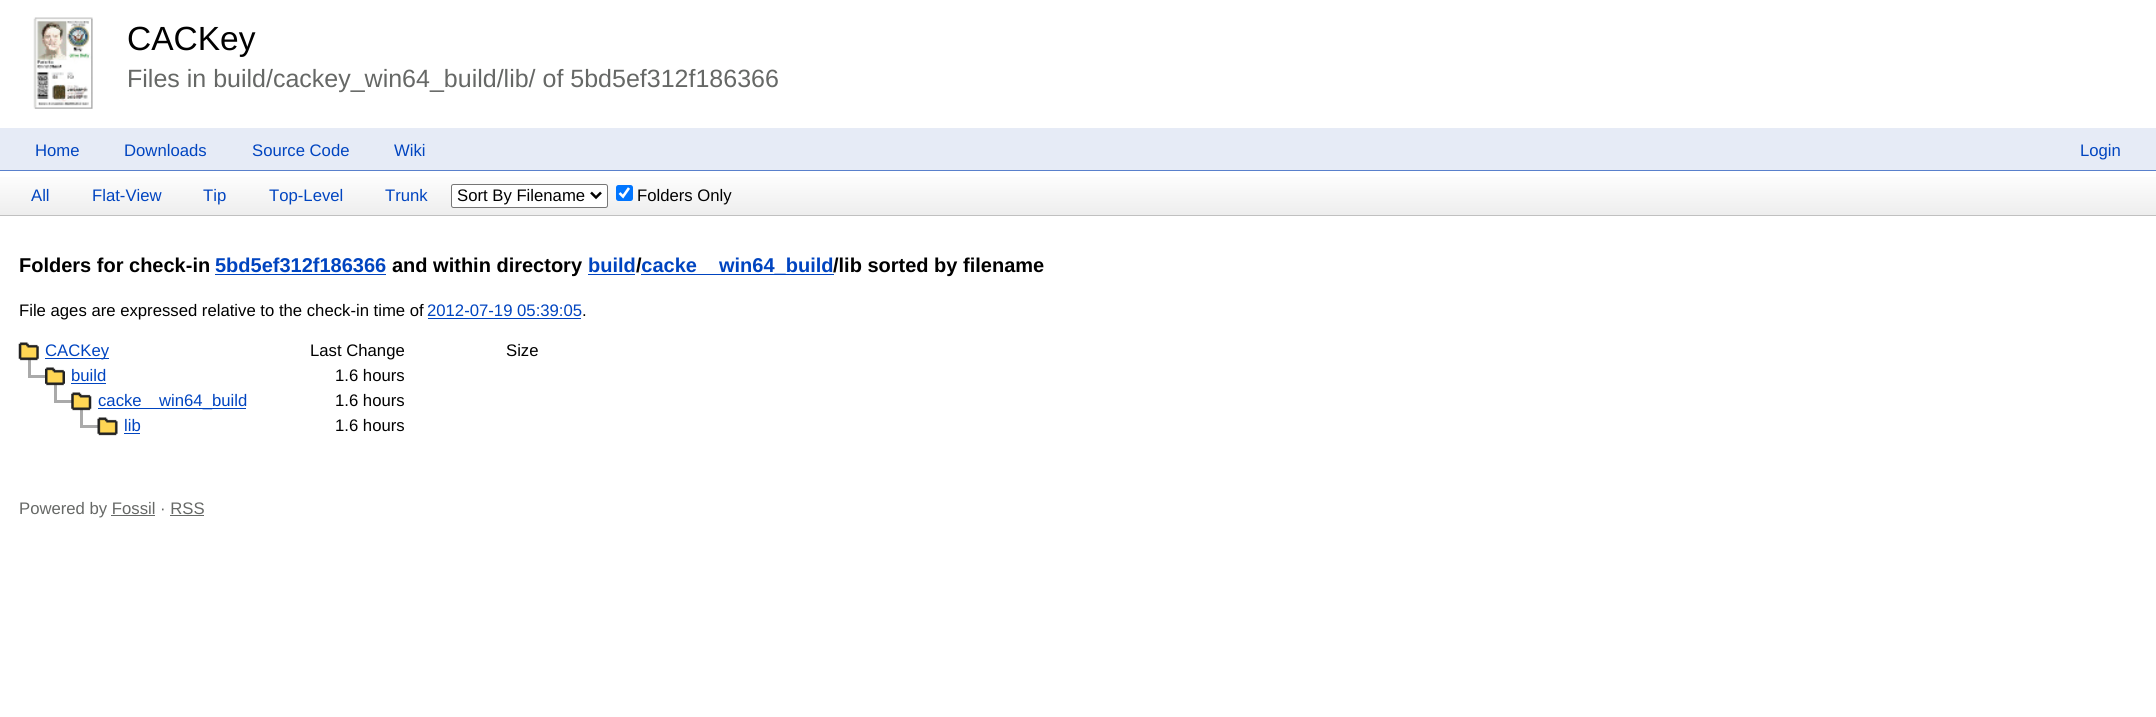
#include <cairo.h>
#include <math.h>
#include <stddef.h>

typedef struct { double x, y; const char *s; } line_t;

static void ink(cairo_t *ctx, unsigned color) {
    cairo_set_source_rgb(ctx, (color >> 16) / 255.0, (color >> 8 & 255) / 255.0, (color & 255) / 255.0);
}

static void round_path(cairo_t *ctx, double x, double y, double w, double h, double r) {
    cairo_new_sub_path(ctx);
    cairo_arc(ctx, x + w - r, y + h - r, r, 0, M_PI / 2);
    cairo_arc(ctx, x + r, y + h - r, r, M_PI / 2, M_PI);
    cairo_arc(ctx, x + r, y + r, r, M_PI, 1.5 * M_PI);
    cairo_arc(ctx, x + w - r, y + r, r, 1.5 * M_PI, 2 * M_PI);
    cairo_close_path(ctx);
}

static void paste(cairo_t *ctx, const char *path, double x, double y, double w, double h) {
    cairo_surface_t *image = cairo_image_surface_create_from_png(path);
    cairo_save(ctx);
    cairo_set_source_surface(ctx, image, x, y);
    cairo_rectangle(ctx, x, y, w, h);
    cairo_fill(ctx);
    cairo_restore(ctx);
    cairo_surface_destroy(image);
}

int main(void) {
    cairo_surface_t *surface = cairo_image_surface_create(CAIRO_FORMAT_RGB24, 2156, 717);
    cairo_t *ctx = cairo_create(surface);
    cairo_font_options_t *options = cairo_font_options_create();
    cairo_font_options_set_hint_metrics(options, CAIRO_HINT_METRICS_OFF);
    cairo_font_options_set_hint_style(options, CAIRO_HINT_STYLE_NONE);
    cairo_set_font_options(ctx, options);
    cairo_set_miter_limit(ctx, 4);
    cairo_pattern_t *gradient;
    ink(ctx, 0xFFFFFF);
    cairo_paint(ctx);
    paste(ctx, "media/1.png", 33, 17, 60, 92);
    cairo_select_font_face(ctx, "Liberation Sans", CAIRO_FONT_SLANT_NORMAL, CAIRO_FONT_WEIGHT_NORMAL);
    cairo_set_font_size(ctx, 33.5);
    ink(ctx, 0x000000);
    cairo_move_to(ctx, 127, 50);
    cairo_show_text(ctx, "CACKey");
    cairo_set_font_size(ctx, 25);
    ink(ctx, 0x666866);
    cairo_move_to(ctx, 127, 87);
    cairo_show_text(ctx, "Files in build/cackey_win64_build/lib/ of 5bd5ef312f186366");
    ink(ctx, 0xE6EBF6);
    cairo_rectangle(ctx, 0, 128, 2156, 42);
    cairo_fill(ctx);
    ink(ctx, 0x5980CC);
    cairo_rectangle(ctx, 0, 170, 2156, 1);
    cairo_fill(ctx);
    cairo_set_font_size(ctx, 16.7);
    ink(ctx, 0x0044C0);
    {
        static const line_t items[] = {
            {35, 156, "Home"},
            {124, 156, "Downloads"},
            {252, 156, "Source Code"},
            {394, 156, "Wiki"},
            {2080, 156, "Login"},
        };
        for (size_t i = 0; i < sizeof items / sizeof *items; i++) {
            cairo_move_to(ctx, items[i].x, items[i].y);
            cairo_show_text(ctx, items[i].s);
        }
    }
    gradient = cairo_pattern_create_linear(0, 215, 0, 171);
    cairo_pattern_add_color_stop_rgba(gradient, 0, 0.933, 0.933, 0.933, 1);
    cairo_pattern_add_color_stop_rgba(gradient, 1, 1, 1, 1, 1);
    cairo_set_source(ctx, gradient);
    cairo_pattern_destroy(gradient);
    cairo_rectangle(ctx, 0, 177, 2156, 38);
    cairo_fill(ctx);
    ink(ctx, 0xC0C0C0);
    cairo_rectangle(ctx, 0, 215, 2156, 1);
    cairo_fill(ctx);
    ink(ctx, 0x0044C0);
    {
        static const line_t items[] = {
            {31, 201, "All"},
            {92, 201, "Flat-View"},
            {203, 201, "Tip"},
            {269, 201, "Top-Level"},
            {385, 201, "Trunk"},
        };
        for (size_t i = 0; i < sizeof items / sizeof *items; i++) {
            cairo_move_to(ctx, items[i].x, items[i].y);
            cairo_show_text(ctx, items[i].s);
        }
    }
    ink(ctx, 0xFFFFFF);
    round_path(ctx, 451.5, 184.5, 156, 23, 2);
    cairo_fill_preserve(ctx);
    ink(ctx, 0x767676);
    cairo_set_line_width(ctx, 1);
    cairo_stroke(ctx);
    cairo_new_path(ctx);
    cairo_move_to(ctx, 591, 192.5);
    cairo_line_to(ctx, 596, 197.5);
    cairo_line_to(ctx, 601, 192.5);
    ink(ctx, 0x000000);
    cairo_set_line_width(ctx, 2.5);
    cairo_stroke(ctx);
    cairo_move_to(ctx, 457, 201);
    cairo_show_text(ctx, "Sort By Filename");
    ink(ctx, 0x0075FF);
    round_path(ctx, 616, 185, 17, 16, 2.5);
    cairo_fill(ctx);
    cairo_new_path(ctx);
    cairo_move_to(ctx, 619.5, 193);
    cairo_line_to(ctx, 623, 196.5);
    cairo_line_to(ctx, 629, 188);
    ink(ctx, 0xFFFFFF);
    cairo_set_line_width(ctx, 2.6);
    cairo_stroke(ctx);
    ink(ctx, 0x000000);
    cairo_move_to(ctx, 637, 201);
    cairo_show_text(ctx, "Folders Only");
    cairo_select_font_face(ctx, "Liberation Sans", CAIRO_FONT_SLANT_NORMAL, CAIRO_FONT_WEIGHT_BOLD);
    cairo_set_font_size(ctx, 20);
    cairo_move_to(ctx, 19, 272);
    cairo_show_text(ctx, "Folders for check-in");
    ink(ctx, 0x0044C0);
    cairo_move_to(ctx, 215, 272);
    cairo_show_text(ctx, "5bd5ef312f186366");
    cairo_rectangle(ctx, 215, 274, 171, 1);
    cairo_fill(ctx);
    ink(ctx, 0x000000);
    cairo_move_to(ctx, 392, 272);
    cairo_show_text(ctx, "and within directory");
    ink(ctx, 0x0044C0);
    cairo_move_to(ctx, 588, 272);
    cairo_show_text(ctx, "build cacke");
    cairo_rectangle(ctx, 588, 274, 47, 1);
    cairo_fill(ctx);
    ink(ctx, 0x000000);
    cairo_move_to(ctx, 636, 272);
    cairo_show_text(ctx, "/");
    ink(ctx, 0x0044C0);
    cairo_rectangle(ctx, 641, 274, 193, 1);
    cairo_fill(ctx);
    cairo_move_to(ctx, 719, 272);
    cairo_show_text(ctx, "win64_build");
    ink(ctx, 0x000000);
    cairo_move_to(ctx, 833, 272);
    cairo_show_text(ctx, "/lib sorted by filename");
    cairo_select_font_face(ctx, "Liberation Sans", CAIRO_FONT_SLANT_NORMAL, CAIRO_FONT_WEIGHT_NORMAL);
    cairo_set_font_size(ctx, 16.7);
    cairo_move_to(ctx, 19, 316);
    cairo_show_text(ctx, "File ages are expressed relative to the check-in time of");
    ink(ctx, 0x0044C0);
    cairo_move_to(ctx, 427, 316);
    cairo_show_text(ctx, "2012-07-19 05:39:05");
    cairo_rectangle(ctx, 428, 318, 153, 1);
    cairo_fill(ctx);
    ink(ctx, 0x000000);
    cairo_move_to(ctx, 582, 316);
    cairo_show_text(ctx, ".");
    ink(ctx, 0xAAAAAA);
    cairo_rectangle(ctx, 28, 375, 20, 3);
    cairo_fill(ctx);
    cairo_rectangle(ctx, 28, 359, 3, 19);
    cairo_fill(ctx);
    paste(ctx, "media/2.png", 18, 342, 21, 19);
    ink(ctx, 0x0044C0);
    cairo_rectangle(ctx, 45, 358, 64, 1);
    cairo_fill(ctx);
    cairo_move_to(ctx, 45, 356);
    cairo_show_text(ctx, "CACKey");
    ink(ctx, 0x000000);
    cairo_move_to(ctx, 310, 356);
    cairo_show_text(ctx, "Last Change");
    cairo_move_to(ctx, 506, 356);
    cairo_show_text(ctx, "Size");
    ink(ctx, 0xAAAAAA);
    cairo_rectangle(ctx, 54, 400, 20, 3);
    cairo_fill(ctx);
    cairo_rectangle(ctx, 54, 384, 3, 19);
    cairo_fill(ctx);
    paste(ctx, "media/3.png", 45, 367, 20, 19);
    ink(ctx, 0x0044C0);
    cairo_move_to(ctx, 71, 381);
    cairo_show_text(ctx, "build");
    cairo_rectangle(ctx, 71, 383, 35, 1);
    cairo_fill(ctx);
    ink(ctx, 0x000000);
    cairo_move_to(ctx, 335, 381);
    cairo_show_text(ctx, "1.6 hours");
    ink(ctx, 0xAAAAAA);
    cairo_rectangle(ctx, 80, 425, 20, 3);
    cairo_fill(ctx);
    cairo_rectangle(ctx, 80, 409, 3, 19);
    cairo_fill(ctx);
    paste(ctx, "media/4.png", 71, 392, 21, 19);
    ink(ctx, 0x0044C0);
    cairo_move_to(ctx, 98, 406);
    cairo_show_text(ctx, "cacke");
    cairo_rectangle(ctx, 98, 408, 148, 1);
    cairo_fill(ctx);
    cairo_move_to(ctx, 159, 406);
    cairo_show_text(ctx, "win64_build");
    ink(ctx, 0x000000);
    cairo_move_to(ctx, 335, 406);
    cairo_show_text(ctx, "1.6 hours");
    paste(ctx, "media/5.png", 97, 417, 21, 19);
    ink(ctx, 0x0044C0);
    cairo_move_to(ctx, 124, 431);
    cairo_show_text(ctx, "lib");
    cairo_rectangle(ctx, 124, 433, 16, 1);
    cairo_fill(ctx);
    ink(ctx, 0x000000);
    cairo_move_to(ctx, 335, 431);
    cairo_show_text(ctx, "1.6 hours");
    ink(ctx, 0x666866);
    cairo_move_to(ctx, 19, 514);
    cairo_show_text(ctx, "Powered by Fossil · RSS");
    cairo_rectangle(ctx, 111, 515, 44, 1);
    cairo_fill(ctx);
    cairo_rectangle(ctx, 170, 515, 34, 1);
    cairo_fill(ctx);
    cairo_surface_write_to_png(surface, "image.png");
    cairo_font_options_destroy(options);
    cairo_destroy(ctx);
    cairo_surface_destroy(surface);
    return 0;
}
